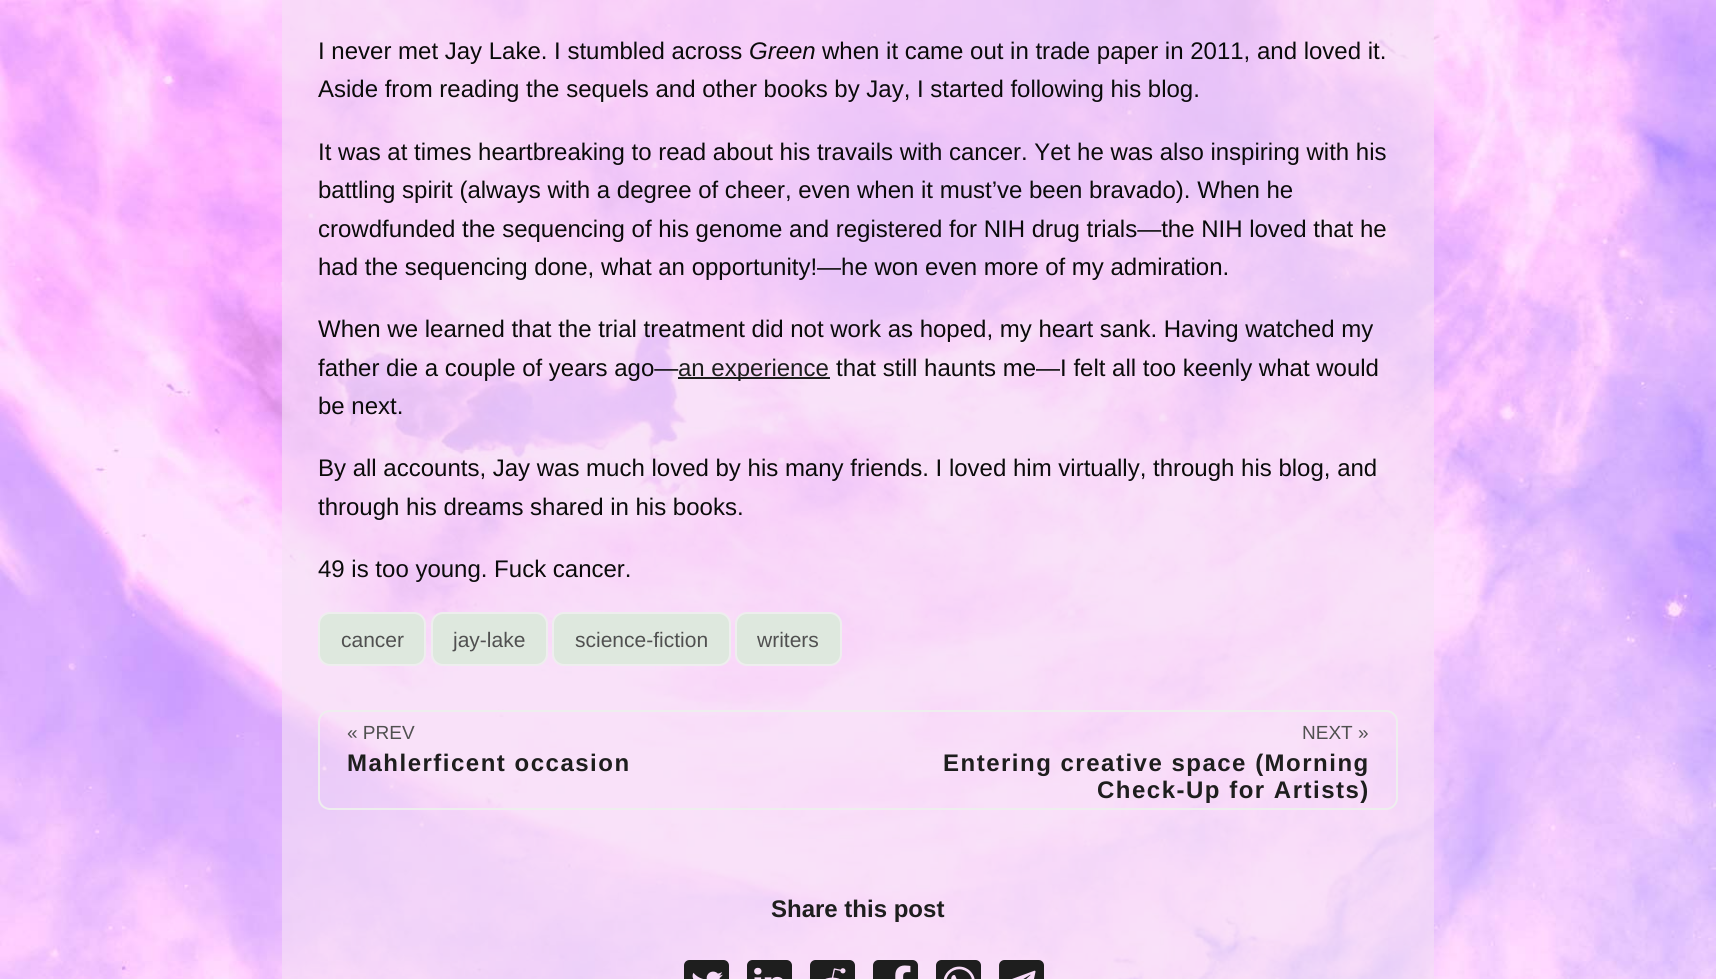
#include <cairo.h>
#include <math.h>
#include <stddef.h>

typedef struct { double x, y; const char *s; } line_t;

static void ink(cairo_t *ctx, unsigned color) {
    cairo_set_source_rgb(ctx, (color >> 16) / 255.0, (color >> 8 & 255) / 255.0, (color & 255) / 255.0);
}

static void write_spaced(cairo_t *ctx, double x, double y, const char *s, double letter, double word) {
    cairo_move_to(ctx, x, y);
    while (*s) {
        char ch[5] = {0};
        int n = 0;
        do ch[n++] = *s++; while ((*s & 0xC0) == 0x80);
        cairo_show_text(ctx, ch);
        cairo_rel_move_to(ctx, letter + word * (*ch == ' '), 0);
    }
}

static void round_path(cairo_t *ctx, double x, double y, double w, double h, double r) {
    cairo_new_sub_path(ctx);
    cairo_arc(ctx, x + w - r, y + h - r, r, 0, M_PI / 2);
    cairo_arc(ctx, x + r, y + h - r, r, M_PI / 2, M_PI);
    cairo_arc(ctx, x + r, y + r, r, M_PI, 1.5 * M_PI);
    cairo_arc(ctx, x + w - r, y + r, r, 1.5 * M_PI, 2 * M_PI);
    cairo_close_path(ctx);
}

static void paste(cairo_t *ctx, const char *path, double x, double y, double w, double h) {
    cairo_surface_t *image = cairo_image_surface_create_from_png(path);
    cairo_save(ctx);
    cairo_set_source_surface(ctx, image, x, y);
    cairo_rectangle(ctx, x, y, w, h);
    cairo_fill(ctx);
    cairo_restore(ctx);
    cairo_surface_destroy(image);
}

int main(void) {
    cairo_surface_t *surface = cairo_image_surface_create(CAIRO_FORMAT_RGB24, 1716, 979);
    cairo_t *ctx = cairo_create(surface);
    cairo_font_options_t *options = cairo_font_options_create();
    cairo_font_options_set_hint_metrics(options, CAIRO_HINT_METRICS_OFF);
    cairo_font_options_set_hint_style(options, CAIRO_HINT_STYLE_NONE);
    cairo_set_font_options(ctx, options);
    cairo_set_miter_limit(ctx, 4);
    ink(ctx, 0xFFFFFF);
    cairo_paint(ctx);
    paste(ctx, "media/1.png", 0, 0, 1716, 979);
    cairo_set_source_rgba(ctx, 0.961, 0.882, 0.961, 0.6);
    cairo_rectangle(ctx, 282, 0, 1152, 979);
    cairo_fill(ctx);
    cairo_select_font_face(ctx, "Liberation Sans", CAIRO_FONT_SLANT_NORMAL, CAIRO_FONT_WEIGHT_NORMAL);
    cairo_set_font_size(ctx, 24);
    ink(ctx, 0x0B0B0B);
    cairo_move_to(ctx, 318, 59);
    cairo_show_text(ctx, "I never met Jay Lake. I stumbled across");
    cairo_select_font_face(ctx, "Liberation Sans", CAIRO_FONT_SLANT_ITALIC, CAIRO_FONT_WEIGHT_NORMAL);
    cairo_move_to(ctx, 749, 59);
    cairo_show_text(ctx, "Green");
    cairo_select_font_face(ctx, "Liberation Sans", CAIRO_FONT_SLANT_NORMAL, CAIRO_FONT_WEIGHT_NORMAL);
    {
        static const line_t items[] = {
            {822, 59, "when it came out in trade paper in 2011, and loved it."},
            {318, 97, "Aside from reading the sequels and other books by Jay, I started following his blog."},
            {318, 160, "It was at times heartbreaking to read about his travails with cancer. Yet he was also inspiring with his"},
            {318, 198, "battling spirit (always with a degree of cheer, even when it must’ve been bravado). When he"},
            {318, 237, "crowdfunded the sequencing of his genome and registered for NIH drug trials—the NIH loved that he"},
            {318, 275, "had the sequencing done, what an opportunity!—he won even more of my admiration."},
            {318, 337, "When we learned that the trial treatment did not work as hoped, my heart sank. Having watched my"},
            {318, 376, "father die a couple of years ago—"},
        };
        for (size_t i = 0; i < sizeof items / sizeof *items; i++) {
            cairo_move_to(ctx, items[i].x, items[i].y);
            cairo_show_text(ctx, items[i].s);
        }
    }
    ink(ctx, 0x1E1E1E);
    cairo_rectangle(ctx, 678, 377, 152, 2);
    cairo_fill(ctx);
    cairo_move_to(ctx, 678, 376);
    cairo_show_text(ctx, "an experience");
    ink(ctx, 0x0B0B0B);
    {
        static const line_t items[] = {
            {836, 376, "that still haunts me—I felt all too keenly what would"},
            {318, 414, "be next."},
            {318, 476, "By all accounts, Jay was much loved by his many friends. I loved him virtually, through his blog, and"},
            {318, 515, "through his dreams shared in his books."},
            {318, 577, "49 is too young. Fuck cancer."},
        };
        for (size_t i = 0; i < sizeof items / sizeof *items; i++) {
            cairo_move_to(ctx, items[i].x, items[i].y);
            cairo_show_text(ctx, items[i].s);
        }
    }
    ink(ctx, 0xDEE8DE);
    round_path(ctx, 319, 613, 106, 52, 11);
    cairo_fill_preserve(ctx);
    ink(ctx, 0xEEEEEE);
    cairo_stroke(ctx);
    cairo_set_font_size(ctx, 21);
    ink(ctx, 0x505050);
    cairo_move_to(ctx, 341, 647);
    cairo_show_text(ctx, "cancer");
    ink(ctx, 0xDEE8DE);
    round_path(ctx, 432, 613, 115, 52, 11);
    cairo_fill_preserve(ctx);
    ink(ctx, 0xEEEEEE);
    cairo_stroke(ctx);
    ink(ctx, 0x505050);
    cairo_move_to(ctx, 453, 647);
    cairo_show_text(ctx, "jay-lake");
    ink(ctx, 0xDEE8DE);
    round_path(ctx, 553, 613, 177, 52, 11);
    cairo_fill_preserve(ctx);
    ink(ctx, 0xEEEEEE);
    cairo_stroke(ctx);
    ink(ctx, 0x505050);
    cairo_move_to(ctx, 575, 647);
    cairo_show_text(ctx, "science-fiction");
    ink(ctx, 0xDEE8DE);
    round_path(ctx, 736, 613, 105, 52, 11);
    cairo_fill_preserve(ctx);
    ink(ctx, 0xEEEEEE);
    cairo_stroke(ctx);
    ink(ctx, 0x505050);
    cairo_move_to(ctx, 757, 647);
    cairo_show_text(ctx, "writers");
    round_path(ctx, 319, 711, 1078, 98, 11);
    ink(ctx, 0xEEEEEE);
    cairo_stroke(ctx);
    cairo_set_font_size(ctx, 19);
    ink(ctx, 0x505050);
    cairo_move_to(ctx, 347, 739);
    cairo_show_text(ctx, "« PREV");
    cairo_select_font_face(ctx, "Liberation Sans", CAIRO_FONT_SLANT_NORMAL, CAIRO_FONT_WEIGHT_BOLD);
    cairo_set_font_size(ctx, 24);
    ink(ctx, 0x1E1E1E);
    write_spaced(ctx, 347, 771, "Mahlerficent occasion", 1.5, 0);
    cairo_select_font_face(ctx, "Liberation Sans", CAIRO_FONT_SLANT_NORMAL, CAIRO_FONT_WEIGHT_NORMAL);
    cairo_set_font_size(ctx, 19);
    ink(ctx, 0x505050);
    cairo_move_to(ctx, 1302, 739);
    cairo_show_text(ctx, "NEXT »");
    cairo_select_font_face(ctx, "Liberation Sans", CAIRO_FONT_SLANT_NORMAL, CAIRO_FONT_WEIGHT_BOLD);
    cairo_set_font_size(ctx, 24);
    ink(ctx, 0x1E1E1E);
    write_spaced(ctx, 943, 771, "Entering creative space (Morning", 1.5, 0);
    write_spaced(ctx, 1097, 798, "Check-Up for Artists)", 1.5, 0);
    cairo_move_to(ctx, 771, 917);
    cairo_show_text(ctx, "Share this post");
    paste(ctx, "media/2.png", 684, 960, 45, 19);
    paste(ctx, "media/3.png", 747, 960, 45, 19);
    paste(ctx, "media/4.png", 810, 960, 45, 19);
    paste(ctx, "media/5.png", 873, 960, 45, 19);
    paste(ctx, "media/6.png", 936, 960, 45, 19);
    paste(ctx, "media/7.png", 999, 960, 45, 19);
    cairo_surface_write_to_png(surface, "image.png");
    cairo_font_options_destroy(options);
    cairo_destroy(ctx);
    cairo_surface_destroy(surface);
    return 0;
}
